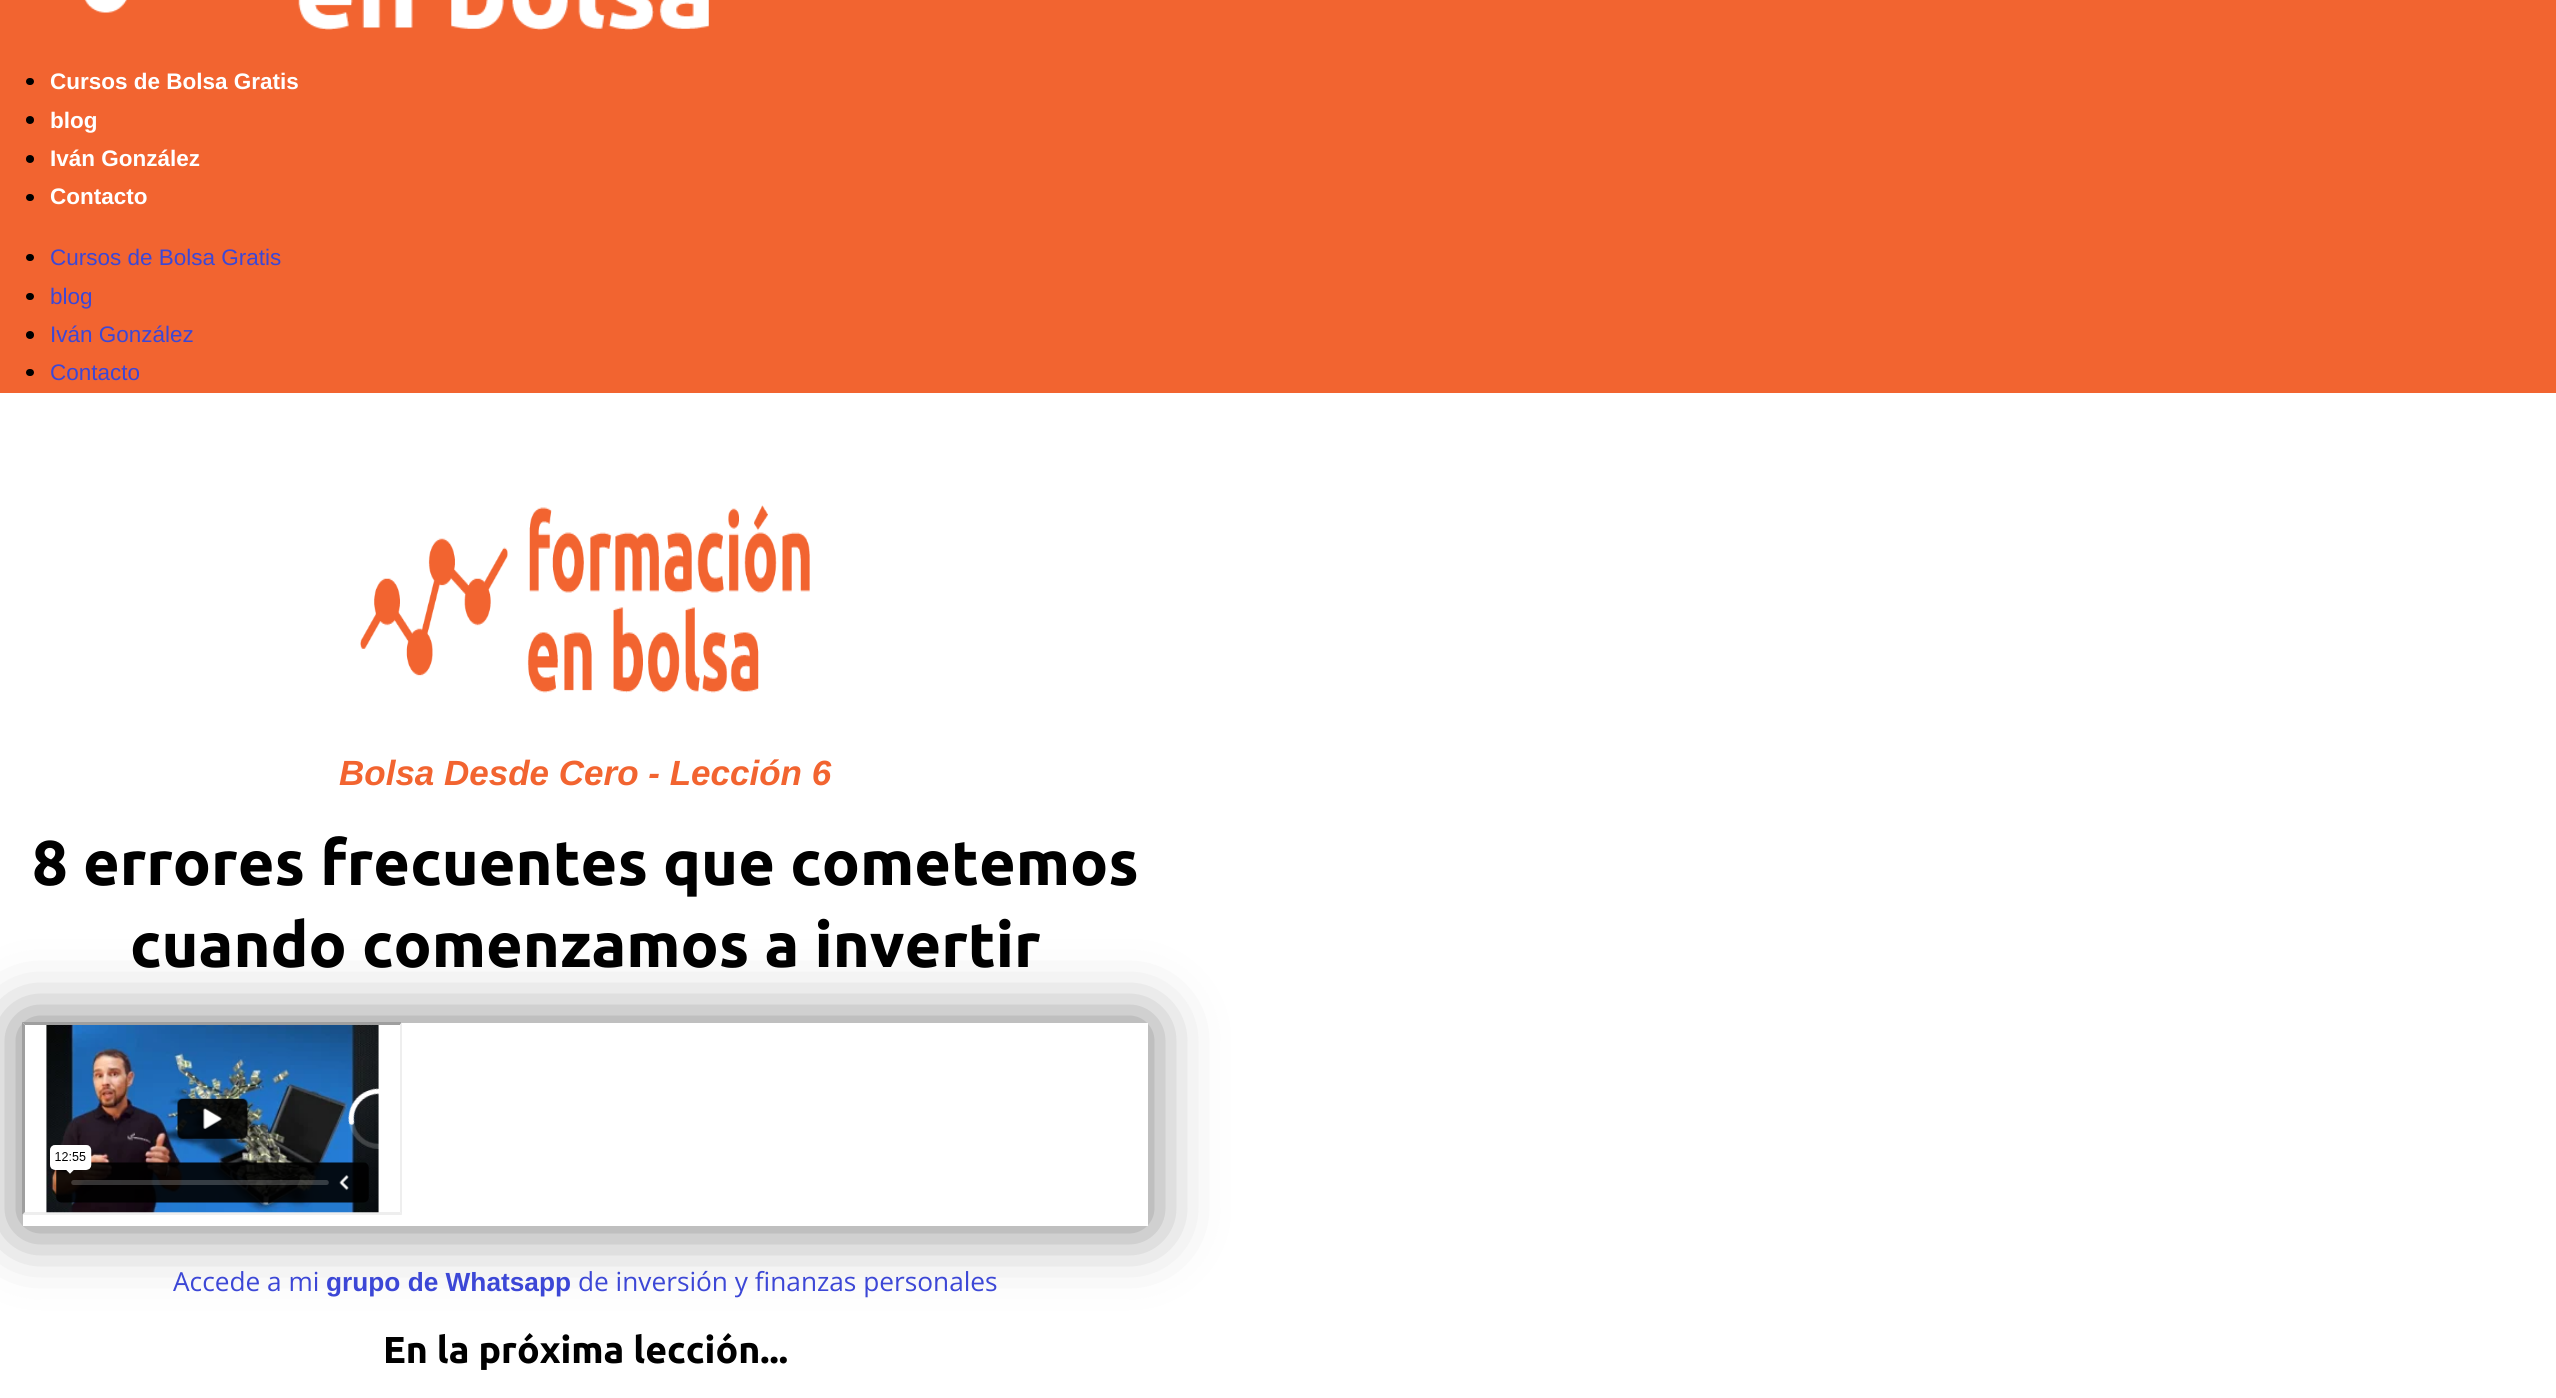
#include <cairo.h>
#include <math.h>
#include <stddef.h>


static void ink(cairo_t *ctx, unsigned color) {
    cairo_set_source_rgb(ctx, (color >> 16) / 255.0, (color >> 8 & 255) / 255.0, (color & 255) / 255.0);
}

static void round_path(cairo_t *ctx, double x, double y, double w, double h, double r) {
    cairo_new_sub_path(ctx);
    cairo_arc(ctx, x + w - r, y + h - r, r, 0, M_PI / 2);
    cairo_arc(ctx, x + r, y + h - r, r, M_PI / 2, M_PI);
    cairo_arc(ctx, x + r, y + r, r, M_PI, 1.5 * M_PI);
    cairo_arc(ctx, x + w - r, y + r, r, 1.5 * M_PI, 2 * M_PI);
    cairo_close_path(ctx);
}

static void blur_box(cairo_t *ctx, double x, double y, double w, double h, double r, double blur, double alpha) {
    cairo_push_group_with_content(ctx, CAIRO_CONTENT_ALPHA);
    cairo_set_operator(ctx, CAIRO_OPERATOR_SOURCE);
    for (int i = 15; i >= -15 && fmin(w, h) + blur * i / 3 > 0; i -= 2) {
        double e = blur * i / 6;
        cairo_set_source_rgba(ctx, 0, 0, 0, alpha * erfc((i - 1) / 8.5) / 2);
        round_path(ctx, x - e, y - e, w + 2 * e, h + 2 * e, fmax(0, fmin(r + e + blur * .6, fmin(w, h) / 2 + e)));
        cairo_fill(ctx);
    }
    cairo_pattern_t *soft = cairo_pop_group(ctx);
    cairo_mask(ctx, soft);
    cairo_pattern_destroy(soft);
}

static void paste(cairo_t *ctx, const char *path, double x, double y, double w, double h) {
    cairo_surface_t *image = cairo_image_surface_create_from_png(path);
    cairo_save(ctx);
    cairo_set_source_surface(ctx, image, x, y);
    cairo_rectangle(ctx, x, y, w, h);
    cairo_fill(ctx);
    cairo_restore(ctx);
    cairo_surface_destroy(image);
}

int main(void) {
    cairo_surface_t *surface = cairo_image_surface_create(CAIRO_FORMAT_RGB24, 2556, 1398);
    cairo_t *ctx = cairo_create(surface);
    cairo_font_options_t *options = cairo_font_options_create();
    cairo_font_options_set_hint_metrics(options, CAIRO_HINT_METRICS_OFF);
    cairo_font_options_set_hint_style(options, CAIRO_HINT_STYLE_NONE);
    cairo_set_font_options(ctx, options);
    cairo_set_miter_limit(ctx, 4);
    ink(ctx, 0xFFFFFF);
    cairo_paint(ctx);
    ink(ctx, 0xF26430);
    cairo_rectangle(ctx, 0, 0, 2556, 393);
    cairo_fill(ctx);
    paste(ctx, "media/1.png", 84, 0, 625, 30);
    ink(ctx, 0x000000);
    round_path(ctx, 26, 78, 8, 7, 3.5);
    cairo_fill(ctx);
    cairo_select_font_face(ctx, "Liberation Sans", CAIRO_FONT_SLANT_NORMAL, CAIRO_FONT_WEIGHT_BOLD);
    cairo_set_font_size(ctx, 22.5);
    ink(ctx, 0xFFFFFF);
    cairo_move_to(ctx, 50, 89);
    cairo_show_text(ctx, "Cursos de Bolsa Gratis");
    ink(ctx, 0x000000);
    cairo_new_path(ctx);
    cairo_arc(ctx, 30, 120, 4, 0, 2 * M_PI);
    cairo_fill(ctx);
    ink(ctx, 0xFFFFFF);
    cairo_move_to(ctx, 50, 128);
    cairo_show_text(ctx, "blog");
    ink(ctx, 0x000000);
    cairo_new_path(ctx);
    cairo_arc(ctx, 30, 159, 4, 0, 2 * M_PI);
    cairo_fill(ctx);
    ink(ctx, 0xFFFFFF);
    cairo_move_to(ctx, 50, 166);
    cairo_show_text(ctx, "Iván González");
    ink(ctx, 0x000000);
    round_path(ctx, 26, 194, 8, 7, 3.5);
    cairo_fill(ctx);
    ink(ctx, 0xFFFFFF);
    cairo_move_to(ctx, 50, 204);
    cairo_show_text(ctx, "Contacto");
    ink(ctx, 0x000000);
    round_path(ctx, 26, 254, 8, 7, 3.5);
    cairo_fill(ctx);
    cairo_select_font_face(ctx, "Liberation Sans", CAIRO_FONT_SLANT_NORMAL, CAIRO_FONT_WEIGHT_NORMAL);
    ink(ctx, 0x3C47D6);
    cairo_move_to(ctx, 50, 265);
    cairo_show_text(ctx, "Cursos de Bolsa Gratis");
    ink(ctx, 0x000000);
    round_path(ctx, 26, 293, 8, 7, 3.5);
    cairo_fill(ctx);
    ink(ctx, 0x3C47D6);
    cairo_move_to(ctx, 50, 304);
    cairo_show_text(ctx, "blog");
    ink(ctx, 0x000000);
    cairo_new_path(ctx);
    cairo_arc(ctx, 30, 335, 4, 0, 2 * M_PI);
    cairo_fill(ctx);
    ink(ctx, 0x3C47D6);
    cairo_move_to(ctx, 50, 342);
    cairo_show_text(ctx, "Iván González");
    ink(ctx, 0x000000);
    round_path(ctx, 26, 369, 8, 7, 3.5);
    cairo_fill(ctx);
    ink(ctx, 0x3C47D6);
    cairo_move_to(ctx, 50, 380);
    cairo_show_text(ctx, "Contacto");
    paste(ctx, "media/2.png", 360, 505, 450, 188);
    cairo_select_font_face(ctx, "Liberation Sans", CAIRO_FONT_SLANT_ITALIC, CAIRO_FONT_WEIGHT_BOLD);
    cairo_set_font_size(ctx, 35);
    ink(ctx, 0xF26430);
    cairo_move_to(ctx, 339, 785);
    cairo_show_text(ctx, "Bolsa Desde Cero - Lección 6");
    cairo_select_font_face(ctx, "Ubuntu", CAIRO_FONT_SLANT_NORMAL, CAIRO_FONT_WEIGHT_BOLD);
    cairo_set_font_size(ctx, 63);
    ink(ctx, 0x000000);
    cairo_move_to(ctx, 32, 885);
    cairo_show_text(ctx, "8 errores frecuentes que cometemos");
    cairo_save(ctx);
    cairo_set_fill_rule(ctx, CAIRO_FILL_RULE_EVEN_ODD);
    cairo_new_path(ctx);
    cairo_move_to(ctx, 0, 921);
    cairo_line_to(ctx, 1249, 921);
    cairo_line_to(ctx, 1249, 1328);
    cairo_line_to(ctx, 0, 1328);
    cairo_close_path(ctx);
    cairo_move_to(ctx, 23, 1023);
    cairo_line_to(ctx, 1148, 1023);
    cairo_line_to(ctx, 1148, 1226);
    cairo_line_to(ctx, 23, 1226);
    cairo_close_path(ctx);
    cairo_clip(ctx);
    ink(ctx, 0x000000);
    blur_box(ctx, 21, 1021, 1128, 207, 0, 33, 0.5);
    cairo_restore(ctx);
    cairo_move_to(ctx, 130, 967);
    cairo_show_text(ctx, "cuando comenzamos a invertir");
    ink(ctx, 0x9F9F9F);
    cairo_new_path(ctx);
    cairo_move_to(ctx, 22, 1022);
    cairo_line_to(ctx, 402, 1022);
    cairo_line_to(ctx, 400, 1025);
    cairo_line_to(ctx, 25, 1025);
    cairo_close_path(ctx);
    cairo_fill(ctx);
    ink(ctx, 0xEEEEEE);
    cairo_new_path(ctx);
    cairo_move_to(ctx, 402, 1022);
    cairo_line_to(ctx, 402, 1215);
    cairo_line_to(ctx, 400, 1212);
    cairo_line_to(ctx, 400, 1025);
    cairo_close_path(ctx);
    cairo_fill(ctx);
    cairo_new_path(ctx);
    cairo_move_to(ctx, 402, 1215);
    cairo_line_to(ctx, 22, 1215);
    cairo_line_to(ctx, 25, 1212);
    cairo_line_to(ctx, 400, 1212);
    cairo_close_path(ctx);
    cairo_fill(ctx);
    ink(ctx, 0x9F9F9F);
    cairo_new_path(ctx);
    cairo_move_to(ctx, 22, 1215);
    cairo_line_to(ctx, 22, 1022);
    cairo_line_to(ctx, 25, 1025);
    cairo_line_to(ctx, 25, 1212);
    cairo_close_path(ctx);
    cairo_fill(ctx);
    paste(ctx, "media/3.png", 46, 1025, 333, 188);
    cairo_select_font_face(ctx, "Open Sans", CAIRO_FONT_SLANT_NORMAL, CAIRO_FONT_WEIGHT_NORMAL);
    cairo_set_font_size(ctx, 26.25);
    ink(ctx, 0x3C47D6);
    cairo_move_to(ctx, 173, 1291);
    cairo_show_text(ctx, "Accede a mi");
    cairo_select_font_face(ctx, "Liberation Sans", CAIRO_FONT_SLANT_NORMAL, CAIRO_FONT_WEIGHT_BOLD);
    cairo_move_to(ctx, 326, 1291);
    cairo_show_text(ctx, "grupo de Whatsapp");
    cairo_select_font_face(ctx, "Open Sans", CAIRO_FONT_SLANT_NORMAL, CAIRO_FONT_WEIGHT_NORMAL);
    cairo_move_to(ctx, 578, 1291);
    cairo_show_text(ctx, "de inversión y finanzas personales");
    cairo_select_font_face(ctx, "Ubuntu", CAIRO_FONT_SLANT_NORMAL, CAIRO_FONT_WEIGHT_BOLD);
    cairo_set_font_size(ctx, 37.5);
    ink(ctx, 0x000000);
    cairo_move_to(ctx, 383, 1363);
    cairo_show_text(ctx, "En la próxima lección...");
    cairo_surface_write_to_png(surface, "image.png");
    cairo_font_options_destroy(options);
    cairo_destroy(ctx);
    cairo_surface_destroy(surface);
    return 0;
}
